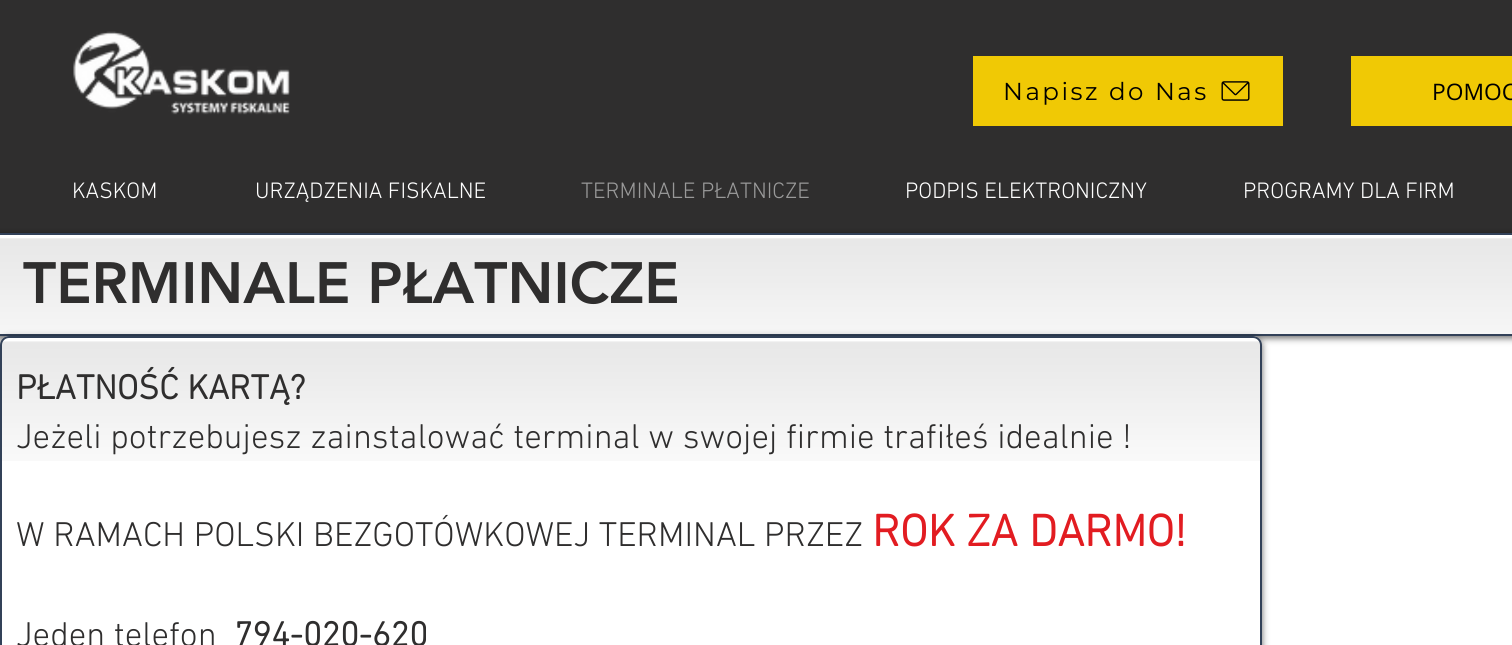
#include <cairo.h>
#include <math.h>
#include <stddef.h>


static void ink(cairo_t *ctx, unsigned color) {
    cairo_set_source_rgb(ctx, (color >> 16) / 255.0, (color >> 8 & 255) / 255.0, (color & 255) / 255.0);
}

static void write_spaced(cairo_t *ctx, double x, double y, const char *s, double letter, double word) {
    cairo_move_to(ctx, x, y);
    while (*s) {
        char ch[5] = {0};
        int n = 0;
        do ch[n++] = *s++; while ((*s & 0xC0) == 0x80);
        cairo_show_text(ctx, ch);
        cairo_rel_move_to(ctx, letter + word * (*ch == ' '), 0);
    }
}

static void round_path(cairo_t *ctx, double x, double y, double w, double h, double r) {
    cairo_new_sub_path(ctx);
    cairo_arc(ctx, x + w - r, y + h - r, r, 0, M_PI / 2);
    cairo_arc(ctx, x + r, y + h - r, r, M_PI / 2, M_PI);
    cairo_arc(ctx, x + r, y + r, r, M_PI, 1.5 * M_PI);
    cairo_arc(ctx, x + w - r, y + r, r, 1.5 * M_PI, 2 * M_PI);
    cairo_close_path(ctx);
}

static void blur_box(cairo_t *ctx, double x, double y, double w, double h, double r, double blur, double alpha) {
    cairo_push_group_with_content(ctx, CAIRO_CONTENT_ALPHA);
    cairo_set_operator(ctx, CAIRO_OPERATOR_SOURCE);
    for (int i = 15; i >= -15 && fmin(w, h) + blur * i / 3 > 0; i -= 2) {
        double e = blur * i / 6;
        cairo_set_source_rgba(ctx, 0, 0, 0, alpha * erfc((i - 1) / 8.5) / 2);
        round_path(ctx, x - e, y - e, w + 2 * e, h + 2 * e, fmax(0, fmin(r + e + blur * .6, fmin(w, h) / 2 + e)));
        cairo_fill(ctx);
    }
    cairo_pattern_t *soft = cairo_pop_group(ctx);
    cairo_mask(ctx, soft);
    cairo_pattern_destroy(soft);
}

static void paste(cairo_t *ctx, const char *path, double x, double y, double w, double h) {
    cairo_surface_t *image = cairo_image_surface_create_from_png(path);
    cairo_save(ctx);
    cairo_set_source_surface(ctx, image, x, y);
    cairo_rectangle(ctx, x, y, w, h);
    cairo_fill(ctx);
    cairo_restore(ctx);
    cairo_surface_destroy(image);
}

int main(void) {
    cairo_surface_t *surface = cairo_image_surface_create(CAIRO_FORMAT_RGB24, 1512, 645);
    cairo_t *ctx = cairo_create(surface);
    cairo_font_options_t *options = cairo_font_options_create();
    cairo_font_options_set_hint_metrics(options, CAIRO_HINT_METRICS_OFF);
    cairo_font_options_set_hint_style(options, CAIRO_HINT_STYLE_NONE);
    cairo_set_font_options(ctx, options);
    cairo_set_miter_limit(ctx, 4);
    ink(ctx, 0xFFFFFF);
    cairo_paint(ctx);
    ink(ctx, 0x2F2E2E);
    cairo_rectangle(ctx, 0, 0, 1512, 233);
    cairo_fill(ctx);
    paste(ctx, "media/1.png", 73, 31, 217, 84);
    ink(ctx, 0xF0C905);
    cairo_rectangle(ctx, 973, 56, 310, 70);
    cairo_fill(ctx);
    cairo_select_font_face(ctx, "Montserrat", CAIRO_FONT_SLANT_NORMAL, CAIRO_FONT_WEIGHT_NORMAL);
    cairo_set_font_size(ctx, 24.5);
    ink(ctx, 0x000000);
    write_spaced(ctx, 1003, 100, "Napisz do Nas", 2.5, 0);
    paste(ctx, "media/2.png", 1221, 81, 29, 20);
    ink(ctx, 0xF0C905);
    cairo_rectangle(ctx, 1351, 56, 161, 70);
    cairo_fill(ctx);
    cairo_select_font_face(ctx, "Open Sans", CAIRO_FONT_SLANT_NORMAL, CAIRO_FONT_WEIGHT_NORMAL);
    cairo_set_font_size(ctx, 22.75);
    ink(ctx, 0x000000);
    cairo_move_to(ctx, 1432, 100);
    cairo_show_text(ctx, "POMOC");
    cairo_select_font_face(ctx, "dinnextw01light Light", CAIRO_FONT_SLANT_NORMAL, CAIRO_FONT_WEIGHT_NORMAL);
    ink(ctx, 0xFFFFFF);
    cairo_move_to(ctx, 72, 198);
    cairo_show_text(ctx, "KASKOM");
    cairo_move_to(ctx, 255, 198);
    cairo_show_text(ctx, "URZĄDZENIA FISKALNE");
    ink(ctx, 0x999999);
    cairo_move_to(ctx, 581, 198);
    cairo_show_text(ctx, "TERMINALE PŁATNICZE");
    ink(ctx, 0xFFFFFF);
    cairo_move_to(ctx, 905, 198);
    cairo_show_text(ctx, "PODPIS ELEKTRONICZNY");
    cairo_move_to(ctx, 1243, 198);
    cairo_show_text(ctx, "PROGRAMY DLA FIRM");
    ink(ctx, 0x000000);
    blur_box(ctx, -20, 235, 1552, 103, 9, 3.5, 0.6);
    ink(ctx, 0xFFFFFF);
    cairo_rectangle(ctx, 0, 235, 1512, 99);
    cairo_fill(ctx);
    paste(ctx, "media/3.png", 0, 238, 1512, 96);
    cairo_rectangle(ctx, -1, 234, 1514, 101);
    ink(ctx, 0x324158);
    cairo_stroke(ctx);
    cairo_select_font_face(ctx, "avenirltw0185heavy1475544 Black", CAIRO_FONT_SLANT_NORMAL, CAIRO_FONT_WEIGHT_NORMAL);
    cairo_set_font_size(ctx, 57.75);
    ink(ctx, 0x2F2E2E);
    cairo_move_to(ctx, 23, 303);
    cairo_show_text(ctx, "TERMINALE PŁATNICZE");
    ink(ctx, 0x000000);
    blur_box(ctx, 0, 338, 1262, 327, 9, 3.5, 0.6);
    ink(ctx, 0xFFFFFF);
    round_path(ctx, 0, 336, 1262, 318, 9);
    cairo_fill(ctx);
    paste(ctx, "media/4.png", 0, 341, 1262, 120);
    round_path(ctx, 1, 337, 1260, 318, 8);
    ink(ctx, 0x324158);
    cairo_stroke(ctx);
    cairo_select_font_face(ctx, "dinnextw01light", CAIRO_FONT_SLANT_NORMAL, CAIRO_FONT_WEIGHT_BOLD);
    cairo_set_font_size(ctx, 35);
    ink(ctx, 0x2F2E2E);
    cairo_move_to(ctx, 16, 399);
    cairo_show_text(ctx, "PŁATNOŚĆ KARTĄ?");
    cairo_select_font_face(ctx, "dinnextw01light Light", CAIRO_FONT_SLANT_NORMAL, CAIRO_FONT_WEIGHT_NORMAL);
    cairo_move_to(ctx, 16, 448);
    cairo_show_text(ctx, "Jeżeli potrzebujesz zainstalować terminal w swojej firmie trafiłeś idealnie !");
    cairo_move_to(ctx, 16, 546);
    cairo_show_text(ctx, "W RAMACH POLSKI BEZGOTÓWKOWEJ TERMINAL PRZEZ");
    cairo_select_font_face(ctx, "dinnextw01light", CAIRO_FONT_SLANT_NORMAL, CAIRO_FONT_WEIGHT_BOLD);
    cairo_set_font_size(ctx, 45.5);
    ink(ctx, 0xE21C21);
    cairo_move_to(ctx, 872, 546);
    cairo_show_text(ctx, "ROK ZA DARMO!");
    cairo_select_font_face(ctx, "dinnextw01light Light", CAIRO_FONT_SLANT_NORMAL, CAIRO_FONT_WEIGHT_NORMAL);
    cairo_set_font_size(ctx, 35);
    ink(ctx, 0x2F2E2E);
    cairo_move_to(ctx, 16, 646);
    cairo_show_text(ctx, "Jeden telefon");
    cairo_select_font_face(ctx, "dinnextw01light", CAIRO_FONT_SLANT_NORMAL, CAIRO_FONT_WEIGHT_BOLD);
    cairo_move_to(ctx, 234, 646);
    cairo_show_text(ctx, "794-020-620");
    cairo_surface_write_to_png(surface, "image.png");
    cairo_font_options_destroy(options);
    cairo_destroy(ctx);
    cairo_surface_destroy(surface);
    return 0;
}
